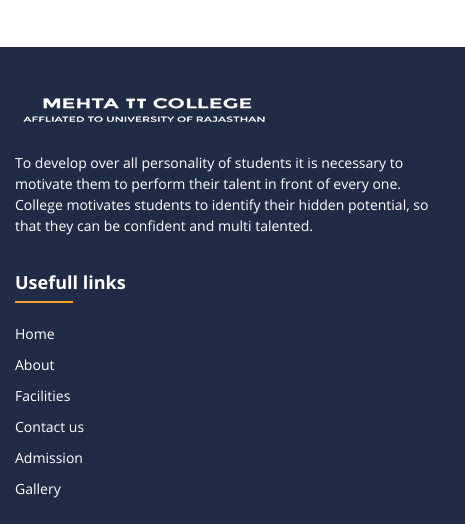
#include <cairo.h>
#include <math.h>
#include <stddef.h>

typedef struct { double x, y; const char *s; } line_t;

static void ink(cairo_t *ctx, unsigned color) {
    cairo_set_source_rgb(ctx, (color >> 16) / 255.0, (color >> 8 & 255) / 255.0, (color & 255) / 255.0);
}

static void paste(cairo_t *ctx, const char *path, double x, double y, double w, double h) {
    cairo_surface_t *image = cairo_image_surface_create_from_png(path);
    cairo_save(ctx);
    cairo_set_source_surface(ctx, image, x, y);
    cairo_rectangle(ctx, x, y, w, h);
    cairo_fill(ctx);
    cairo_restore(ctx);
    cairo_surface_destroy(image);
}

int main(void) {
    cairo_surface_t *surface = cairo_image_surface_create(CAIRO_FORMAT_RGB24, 465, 524);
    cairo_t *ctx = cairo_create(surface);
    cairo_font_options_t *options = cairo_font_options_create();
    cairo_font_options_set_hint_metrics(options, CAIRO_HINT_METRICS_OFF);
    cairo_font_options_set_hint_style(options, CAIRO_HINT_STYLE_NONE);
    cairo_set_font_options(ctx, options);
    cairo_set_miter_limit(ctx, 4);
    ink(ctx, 0xFFFFFF);
    cairo_paint(ctx);
    ink(ctx, 0x202C45);
    cairo_rectangle(ctx, 0, 47, 465, 477);
    cairo_fill(ctx);
    paste(ctx, "media/1.png", 23, 98, 242, 24);
    cairo_select_font_face(ctx, "Open Sans", CAIRO_FONT_SLANT_NORMAL, CAIRO_FONT_WEIGHT_NORMAL);
    cairo_set_font_size(ctx, 14);
    ink(ctx, 0xFFFFFF);
    {
        static const line_t items[] = {
            {15, 168, "To develop over all personality of students it is necessary to"},
            {15, 189, "motivate them to perform their talent in front of every one."},
            {15, 210, "College motivates students to identify their hidden potential, so"},
            {15, 231, "that they can be confident and multi talented."},
        };
        for (size_t i = 0; i < sizeof items / sizeof *items; i++) {
            cairo_move_to(ctx, items[i].x, items[i].y);
            cairo_show_text(ctx, items[i].s);
        }
    }
    cairo_select_font_face(ctx, "Open Sans", CAIRO_FONT_SLANT_NORMAL, CAIRO_FONT_WEIGHT_BOLD);
    cairo_set_font_size(ctx, 18);
    cairo_move_to(ctx, 15, 289);
    cairo_show_text(ctx, "Usefull links");
    ink(ctx, 0xF4A024);
    cairo_rectangle(ctx, 15, 301, 58, 2);
    cairo_fill(ctx);
    cairo_select_font_face(ctx, "Open Sans", CAIRO_FONT_SLANT_NORMAL, CAIRO_FONT_WEIGHT_NORMAL);
    cairo_set_font_size(ctx, 14);
    ink(ctx, 0xFFFFFF);
    {
        static const line_t items[] = {
            {15, 339, "Home"},
            {15, 370, "About"},
            {15, 401, "Facilities"},
            {15, 432, "Contact us"},
            {15, 463, "Admission"},
            {15, 494, "Gallery"},
        };
        for (size_t i = 0; i < sizeof items / sizeof *items; i++) {
            cairo_move_to(ctx, items[i].x, items[i].y);
            cairo_show_text(ctx, items[i].s);
        }
    }
    cairo_surface_write_to_png(surface, "image.png");
    cairo_font_options_destroy(options);
    cairo_destroy(ctx);
    cairo_surface_destroy(surface);
    return 0;
}
